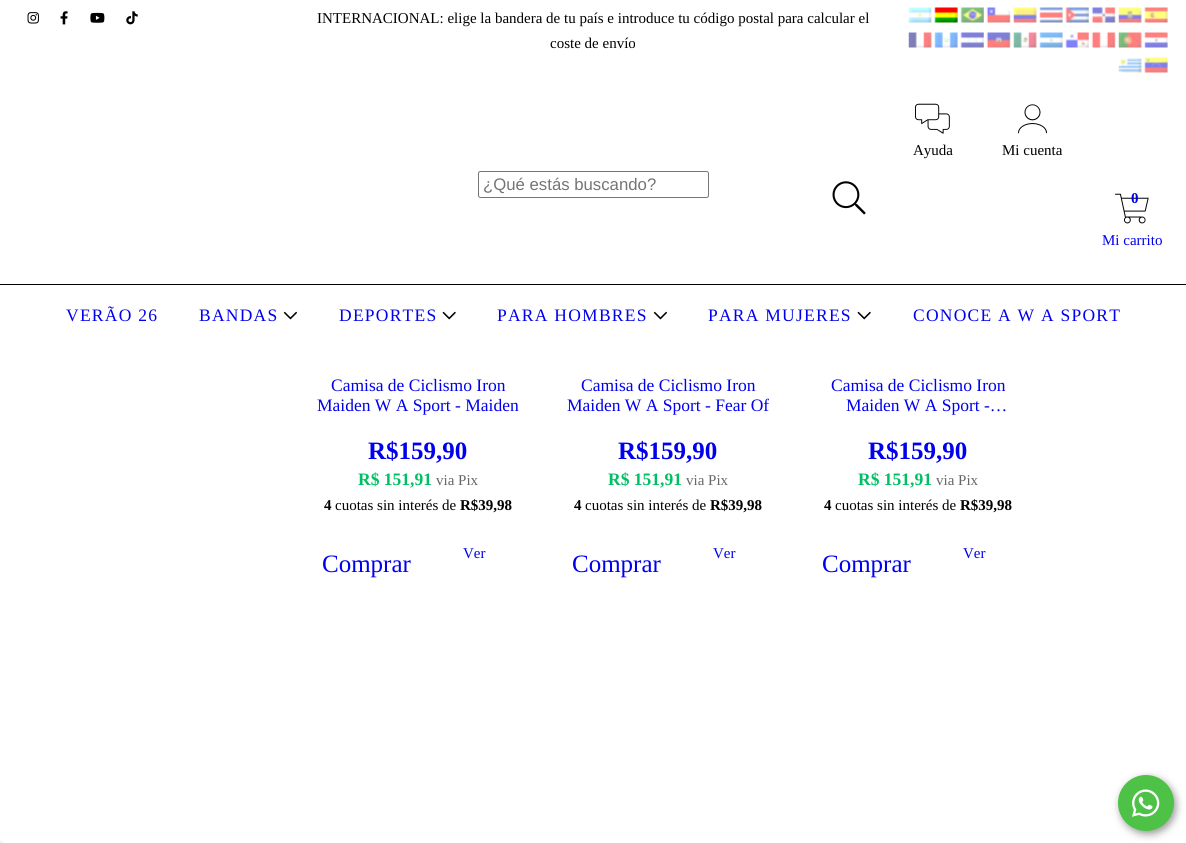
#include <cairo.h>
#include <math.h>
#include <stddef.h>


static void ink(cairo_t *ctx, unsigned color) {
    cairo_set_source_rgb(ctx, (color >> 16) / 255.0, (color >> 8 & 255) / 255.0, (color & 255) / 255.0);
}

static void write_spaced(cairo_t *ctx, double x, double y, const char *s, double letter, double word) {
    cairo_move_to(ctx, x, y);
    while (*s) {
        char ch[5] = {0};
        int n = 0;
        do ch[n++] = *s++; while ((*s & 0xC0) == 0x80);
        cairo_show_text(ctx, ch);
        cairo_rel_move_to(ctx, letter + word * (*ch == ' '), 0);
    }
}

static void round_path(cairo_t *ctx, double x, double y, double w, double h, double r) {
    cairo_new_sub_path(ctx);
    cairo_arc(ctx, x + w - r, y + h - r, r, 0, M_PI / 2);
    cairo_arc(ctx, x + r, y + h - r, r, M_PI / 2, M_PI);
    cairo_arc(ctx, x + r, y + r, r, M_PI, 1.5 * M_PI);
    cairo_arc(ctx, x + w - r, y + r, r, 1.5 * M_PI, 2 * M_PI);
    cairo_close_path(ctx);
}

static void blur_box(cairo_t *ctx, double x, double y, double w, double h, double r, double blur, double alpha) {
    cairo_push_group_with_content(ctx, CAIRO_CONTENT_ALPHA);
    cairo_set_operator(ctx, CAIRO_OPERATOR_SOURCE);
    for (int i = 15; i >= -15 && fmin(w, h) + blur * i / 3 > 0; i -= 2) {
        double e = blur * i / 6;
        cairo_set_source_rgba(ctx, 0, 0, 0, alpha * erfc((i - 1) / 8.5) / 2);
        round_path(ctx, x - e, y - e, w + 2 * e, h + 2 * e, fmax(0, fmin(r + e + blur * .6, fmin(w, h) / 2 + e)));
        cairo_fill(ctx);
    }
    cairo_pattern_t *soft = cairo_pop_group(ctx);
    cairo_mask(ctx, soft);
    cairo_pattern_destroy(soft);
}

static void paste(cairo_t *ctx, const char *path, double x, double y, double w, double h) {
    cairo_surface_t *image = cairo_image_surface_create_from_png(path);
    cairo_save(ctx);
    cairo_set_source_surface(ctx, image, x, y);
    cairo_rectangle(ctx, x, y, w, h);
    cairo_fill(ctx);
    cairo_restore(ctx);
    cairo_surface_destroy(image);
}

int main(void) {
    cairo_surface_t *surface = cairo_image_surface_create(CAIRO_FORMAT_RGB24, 1186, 843);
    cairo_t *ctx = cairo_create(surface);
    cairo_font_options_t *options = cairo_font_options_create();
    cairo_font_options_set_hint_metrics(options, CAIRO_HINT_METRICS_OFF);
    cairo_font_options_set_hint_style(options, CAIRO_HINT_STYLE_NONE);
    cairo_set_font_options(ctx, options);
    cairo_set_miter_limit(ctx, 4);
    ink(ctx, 0xFFFFFF);
    cairo_paint(ctx);
    paste(ctx, "media/1.png", 27, 12, 12, 12);
    paste(ctx, "media/2.png", 60, 11, 8, 14);
    paste(ctx, "media/3.png", 90, 12, 15, 11);
    paste(ctx, "media/4.png", 126, 11, 12, 14);
    cairo_select_font_face(ctx, "Liberation Serif", CAIRO_FONT_SLANT_NORMAL, CAIRO_FONT_WEIGHT_NORMAL);
    cairo_set_font_size(ctx, 15);
    ink(ctx, 0x000000);
    cairo_move_to(ctx, 317, 23);
    cairo_show_text(ctx, "INTERNACIONAL: elige la bandera de tu país e introduce tu código postal para calcular el");
    cairo_move_to(ctx, 550, 48);
    cairo_show_text(ctx, "coste de envío");
    paste(ctx, "media/5.png", 908, 7, 24, 16);
    paste(ctx, "media/6.png", 934, 7, 24, 16);
    paste(ctx, "media/7.png", 960, 7, 24, 16);
    paste(ctx, "media/8.png", 986, 7, 25, 16);
    paste(ctx, "media/9.png", 1013, 7, 24, 16);
    paste(ctx, "media/10.png", 1039, 7, 24, 16);
    paste(ctx, "media/11.png", 1065, 7, 24, 16);
    paste(ctx, "media/12.png", 1091, 7, 25, 16);
    paste(ctx, "media/13.png", 1118, 7, 24, 16);
    paste(ctx, "media/14.png", 1144, 7, 24, 16);
    paste(ctx, "media/15.png", 908, 32, 24, 16);
    paste(ctx, "media/16.png", 934, 32, 24, 16);
    paste(ctx, "media/17.png", 960, 32, 24, 16);
    paste(ctx, "media/18.png", 986, 32, 25, 16);
    paste(ctx, "media/19.png", 1013, 32, 24, 16);
    paste(ctx, "media/20.png", 1039, 32, 24, 16);
    paste(ctx, "media/21.png", 1065, 32, 24, 16);
    paste(ctx, "media/22.png", 1091, 32, 25, 16);
    paste(ctx, "media/23.png", 1118, 32, 24, 16);
    paste(ctx, "media/24.png", 1144, 32, 24, 16);
    paste(ctx, "media/25.png", 1118, 58, 24, 15);
    paste(ctx, "media/26.png", 1144, 57, 24, 16);
    round_path(ctx, 478.5, 171.5, 230, 26, 2);
    ink(ctx, 0x767676);
    cairo_set_line_width(ctx, 1);
    cairo_stroke(ctx);
    cairo_select_font_face(ctx, "Liberation Sans", CAIRO_FONT_SLANT_NORMAL, CAIRO_FONT_WEIGHT_NORMAL);
    cairo_set_font_size(ctx, 16.75);
    ink(ctx, 0x757575);
    cairo_move_to(ctx, 483, 190);
    cairo_show_text(ctx, "¿Qué estás buscando?");
    paste(ctx, "media/27.png", 832, 181, 34, 34);
    paste(ctx, "media/28.png", 915, 103, 35, 31);
    cairo_select_font_face(ctx, "Liberation Serif", CAIRO_FONT_SLANT_NORMAL, CAIRO_FONT_WEIGHT_NORMAL);
    cairo_set_font_size(ctx, 15);
    ink(ctx, 0x000000);
    cairo_move_to(ctx, 913, 155);
    cairo_show_text(ctx, "Ayuda");
    paste(ctx, "media/29.png", 1018, 104, 29, 30);
    cairo_move_to(ctx, 1002, 155);
    cairo_show_text(ctx, "Mi cuenta");
    paste(ctx, "media/30.png", 1115, 193, 34, 31);
    cairo_select_font_face(ctx, "Liberation Serif", CAIRO_FONT_SLANT_NORMAL, CAIRO_FONT_WEIGHT_BOLD);
    ink(ctx, 0x0000EE);
    cairo_move_to(ctx, 1131, 203);
    cairo_show_text(ctx, "0");
    cairo_select_font_face(ctx, "Liberation Serif", CAIRO_FONT_SLANT_NORMAL, CAIRO_FONT_WEIGHT_NORMAL);
    cairo_move_to(ctx, 1102, 245);
    cairo_show_text(ctx, "Mi carrito");
    ink(ctx, 0x000000);
    cairo_rectangle(ctx, 0, 284, 1186, 1);
    cairo_fill(ctx);
    cairo_set_font_size(ctx, 17.5);
    ink(ctx, 0x0000EE);
    write_spaced(ctx, 66, 321, "VERÃO 26", 1.25, 0);
    write_spaced(ctx, 199, 321, "BANDAS", 1.25, 0);
    paste(ctx, "media/31.png", 283, 311, 14, 9);
    write_spaced(ctx, 339, 321, "DEPORTES", 1.25, 0);
    paste(ctx, "media/32.png", 442, 311, 14, 9);
    write_spaced(ctx, 497, 321, "PARA HOMBRES", 1.25, 0);
    paste(ctx, "media/31.png", 653, 311, 14, 9);
    write_spaced(ctx, 708, 321, "PARA MUJERES", 1.25, 0);
    paste(ctx, "media/32.png", 857, 311, 14, 9);
    write_spaced(ctx, 913, 321, "CONOCE A W A SPORT", 1.25, 0);
    cairo_move_to(ctx, 331, 391);
    cairo_show_text(ctx, "Camisa de Ciclismo Iron");
    cairo_move_to(ctx, 317, 411);
    cairo_show_text(ctx, "Maiden W A Sport - Maiden");
    cairo_select_font_face(ctx, "Liberation Serif", CAIRO_FONT_SLANT_NORMAL, CAIRO_FONT_WEIGHT_BOLD);
    cairo_set_font_size(ctx, 25);
    cairo_move_to(ctx, 368, 459);
    cairo_show_text(ctx, "R$159,90");
    cairo_set_font_size(ctx, 17.5);
    ink(ctx, 0x00BF63);
    cairo_move_to(ctx, 358, 485);
    cairo_show_text(ctx, "R$ 151,91");
    cairo_select_font_face(ctx, "Liberation Serif", CAIRO_FONT_SLANT_NORMAL, CAIRO_FONT_WEIGHT_NORMAL);
    cairo_set_font_size(ctx, 15);
    ink(ctx, 0x666666);
    cairo_move_to(ctx, 436, 485);
    cairo_show_text(ctx, "via Pix");
    cairo_select_font_face(ctx, "Liberation Serif", CAIRO_FONT_SLANT_NORMAL, CAIRO_FONT_WEIGHT_BOLD);
    ink(ctx, 0x000000);
    cairo_move_to(ctx, 324, 510);
    cairo_show_text(ctx, "4");
    cairo_select_font_face(ctx, "Liberation Serif", CAIRO_FONT_SLANT_NORMAL, CAIRO_FONT_WEIGHT_NORMAL);
    cairo_move_to(ctx, 335, 510);
    cairo_show_text(ctx, "cuotas sin interés de");
    cairo_select_font_face(ctx, "Liberation Serif", CAIRO_FONT_SLANT_NORMAL, CAIRO_FONT_WEIGHT_BOLD);
    cairo_move_to(ctx, 460, 510);
    cairo_show_text(ctx, "R$39,98");
    cairo_select_font_face(ctx, "Liberation Serif", CAIRO_FONT_SLANT_NORMAL, CAIRO_FONT_WEIGHT_NORMAL);
    ink(ctx, 0x0000EE);
    cairo_move_to(ctx, 463, 558);
    cairo_show_text(ctx, "Ver");
    cairo_set_font_size(ctx, 25);
    cairo_move_to(ctx, 322, 572);
    cairo_show_text(ctx, "Comprar");
    cairo_set_font_size(ctx, 17.5);
    cairo_move_to(ctx, 581, 391);
    cairo_show_text(ctx, "Camisa de Ciclismo Iron");
    cairo_move_to(ctx, 567, 411);
    cairo_show_text(ctx, "Maiden W A Sport - Fear Of");
    cairo_select_font_face(ctx, "Liberation Serif", CAIRO_FONT_SLANT_NORMAL, CAIRO_FONT_WEIGHT_BOLD);
    cairo_set_font_size(ctx, 25);
    cairo_move_to(ctx, 618, 459);
    cairo_show_text(ctx, "R$159,90");
    cairo_set_font_size(ctx, 17.5);
    ink(ctx, 0x00BF63);
    cairo_move_to(ctx, 608, 485);
    cairo_show_text(ctx, "R$ 151,91");
    cairo_select_font_face(ctx, "Liberation Serif", CAIRO_FONT_SLANT_NORMAL, CAIRO_FONT_WEIGHT_NORMAL);
    cairo_set_font_size(ctx, 15);
    ink(ctx, 0x666666);
    cairo_move_to(ctx, 686, 485);
    cairo_show_text(ctx, "via Pix");
    cairo_select_font_face(ctx, "Liberation Serif", CAIRO_FONT_SLANT_NORMAL, CAIRO_FONT_WEIGHT_BOLD);
    ink(ctx, 0x000000);
    cairo_move_to(ctx, 574, 510);
    cairo_show_text(ctx, "4");
    cairo_select_font_face(ctx, "Liberation Serif", CAIRO_FONT_SLANT_NORMAL, CAIRO_FONT_WEIGHT_NORMAL);
    cairo_move_to(ctx, 585, 510);
    cairo_show_text(ctx, "cuotas sin interés de");
    cairo_select_font_face(ctx, "Liberation Serif", CAIRO_FONT_SLANT_NORMAL, CAIRO_FONT_WEIGHT_BOLD);
    cairo_move_to(ctx, 710, 510);
    cairo_show_text(ctx, "R$39,98");
    cairo_select_font_face(ctx, "Liberation Serif", CAIRO_FONT_SLANT_NORMAL, CAIRO_FONT_WEIGHT_NORMAL);
    ink(ctx, 0x0000EE);
    cairo_move_to(ctx, 713, 558);
    cairo_show_text(ctx, "Ver");
    cairo_set_font_size(ctx, 25);
    cairo_move_to(ctx, 572, 572);
    cairo_show_text(ctx, "Comprar");
    cairo_set_font_size(ctx, 17.5);
    cairo_move_to(ctx, 831, 391);
    cairo_show_text(ctx, "Camisa de Ciclismo Iron");
    cairo_move_to(ctx, 846, 411);
    cairo_show_text(ctx, "Maiden W A Sport -…");
    cairo_select_font_face(ctx, "Liberation Serif", CAIRO_FONT_SLANT_NORMAL, CAIRO_FONT_WEIGHT_BOLD);
    cairo_set_font_size(ctx, 25);
    cairo_move_to(ctx, 868, 459);
    cairo_show_text(ctx, "R$159,90");
    cairo_set_font_size(ctx, 17.5);
    ink(ctx, 0x00BF63);
    cairo_move_to(ctx, 858, 485);
    cairo_show_text(ctx, "R$ 151,91");
    cairo_select_font_face(ctx, "Liberation Serif", CAIRO_FONT_SLANT_NORMAL, CAIRO_FONT_WEIGHT_NORMAL);
    cairo_set_font_size(ctx, 15);
    ink(ctx, 0x666666);
    cairo_move_to(ctx, 936, 485);
    cairo_show_text(ctx, "via Pix");
    cairo_select_font_face(ctx, "Liberation Serif", CAIRO_FONT_SLANT_NORMAL, CAIRO_FONT_WEIGHT_BOLD);
    ink(ctx, 0x000000);
    cairo_move_to(ctx, 824, 510);
    cairo_show_text(ctx, "4");
    cairo_select_font_face(ctx, "Liberation Serif", CAIRO_FONT_SLANT_NORMAL, CAIRO_FONT_WEIGHT_NORMAL);
    cairo_move_to(ctx, 835, 510);
    cairo_show_text(ctx, "cuotas sin interés de");
    cairo_select_font_face(ctx, "Liberation Serif", CAIRO_FONT_SLANT_NORMAL, CAIRO_FONT_WEIGHT_BOLD);
    cairo_move_to(ctx, 960, 510);
    cairo_show_text(ctx, "R$39,98");
    cairo_select_font_face(ctx, "Liberation Serif", CAIRO_FONT_SLANT_NORMAL, CAIRO_FONT_WEIGHT_NORMAL);
    ink(ctx, 0x0000EE);
    cairo_move_to(ctx, 963, 558);
    cairo_show_text(ctx, "Ver");
    cairo_set_font_size(ctx, 25);
    cairo_move_to(ctx, 822, 572);
    cairo_show_text(ctx, "Comprar");
    ink(ctx, 0xF5F5F5);
    cairo_rectangle(ctx, 0, 841, 3, 2);
    cairo_fill(ctx);
    ink(ctx, 0x000000);
    blur_box(ctx, 1120, 778, 56, 56, 28, 4, 0.4);
    ink(ctx, 0x4DC247);
    cairo_arc(ctx, 1146, 803, 28, 0, 2 * M_PI);
    cairo_fill(ctx);
    paste(ctx, "media/33.png", 1132, 789, 28, 28);
    cairo_surface_write_to_png(surface, "image.png");
    cairo_font_options_destroy(options);
    cairo_destroy(ctx);
    cairo_surface_destroy(surface);
    return 0;
}
